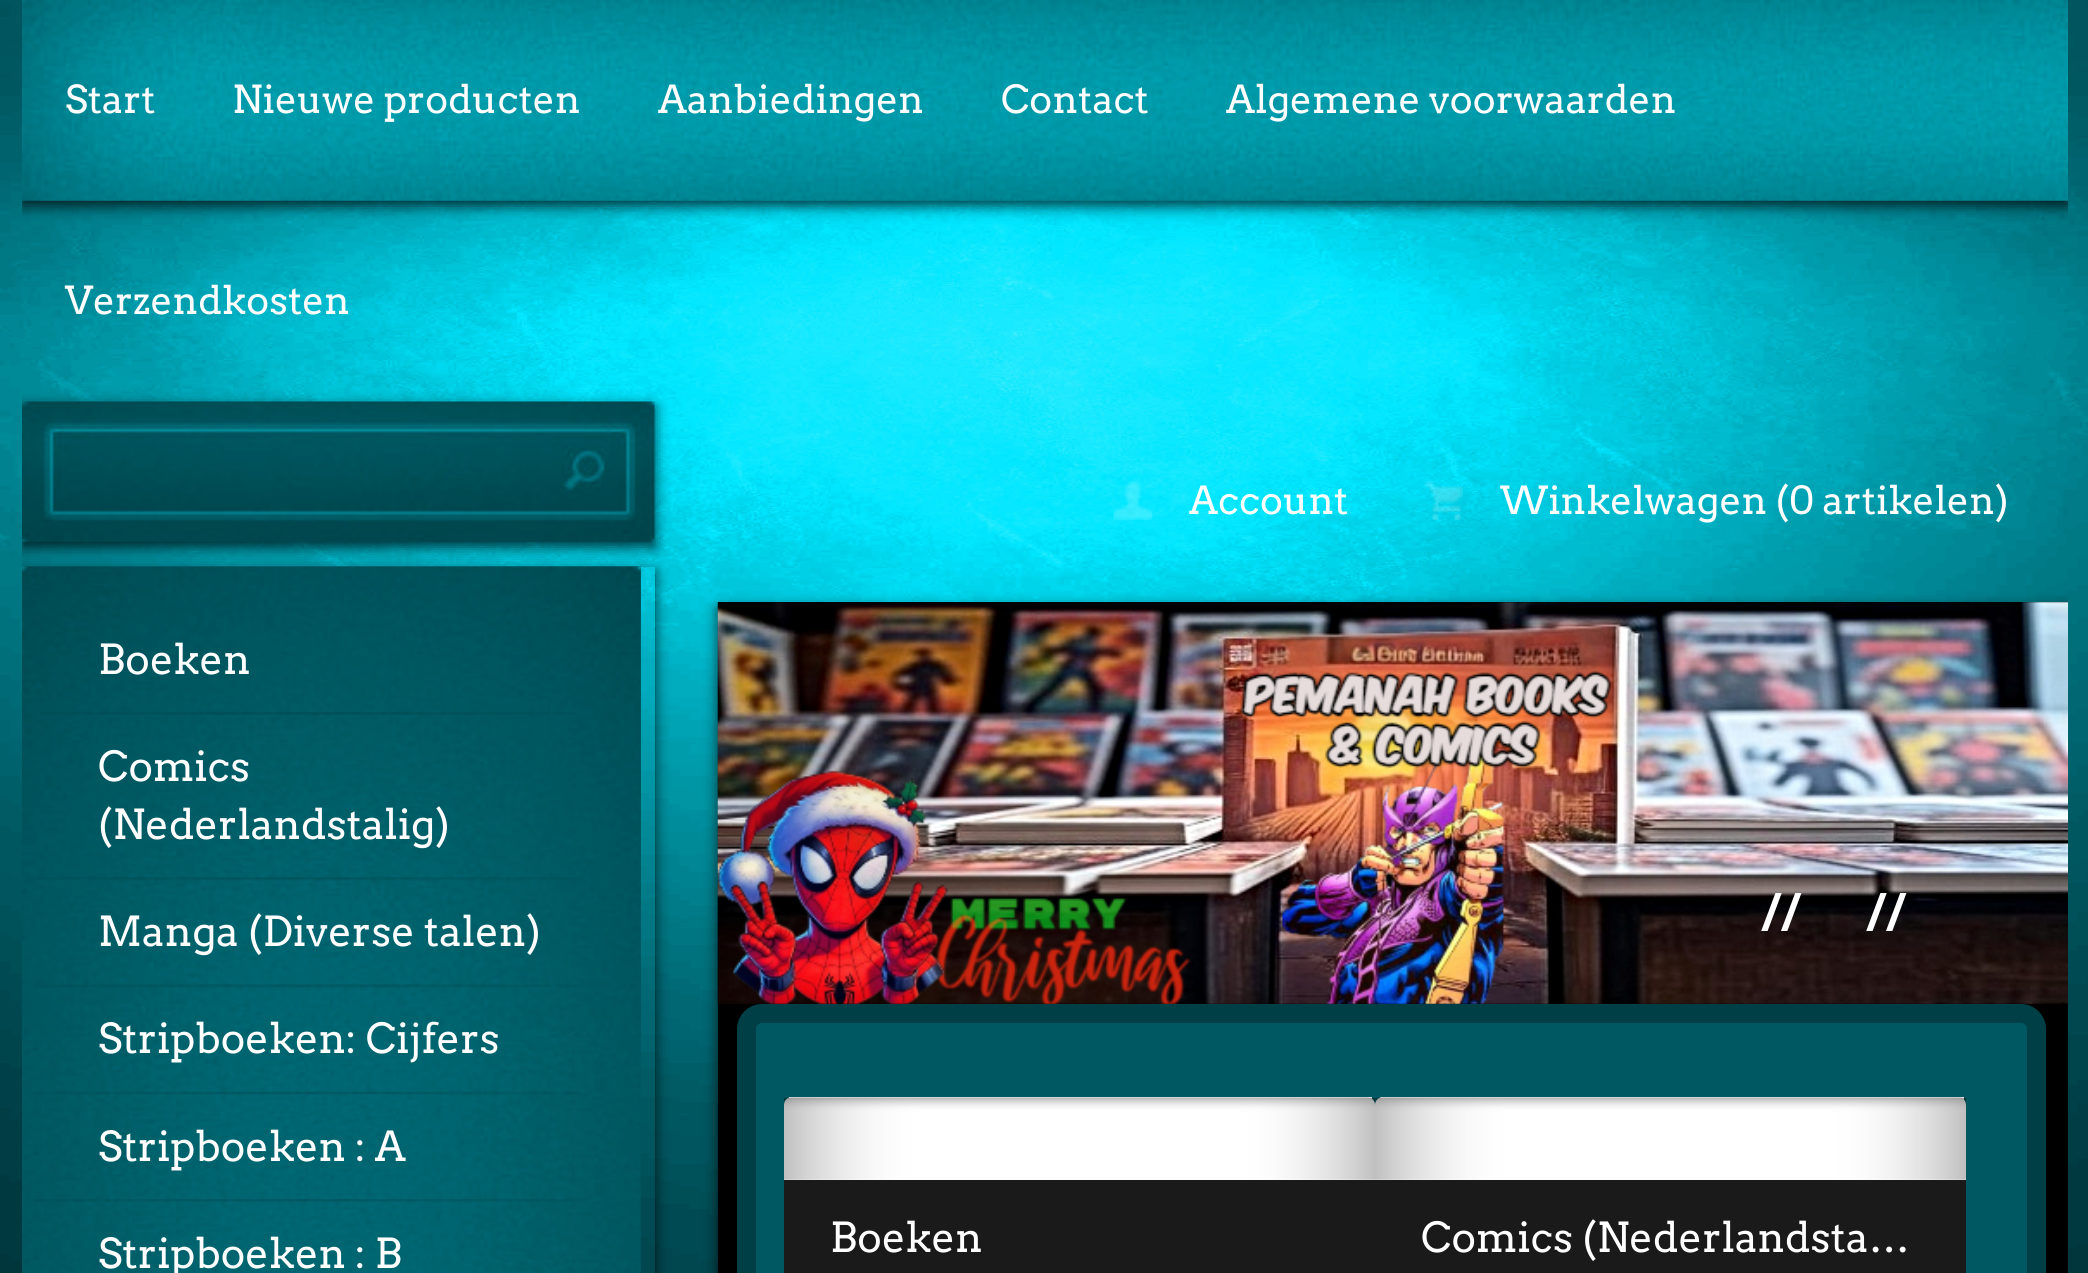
#include <cairo.h>
#include <math.h>
#include <stddef.h>

typedef struct { double x, y; const char *s; } line_t;

static void ink(cairo_t *ctx, unsigned color) {
    cairo_set_source_rgb(ctx, (color >> 16) / 255.0, (color >> 8 & 255) / 255.0, (color & 255) / 255.0);
}

static void round_path(cairo_t *ctx, double x, double y, double w, double h, double r) {
    cairo_new_sub_path(ctx);
    cairo_arc(ctx, x + w - r, y + h - r, r, 0, M_PI / 2);
    cairo_arc(ctx, x + r, y + h - r, r, M_PI / 2, M_PI);
    cairo_arc(ctx, x + r, y + r, r, M_PI, 1.5 * M_PI);
    cairo_arc(ctx, x + w - r, y + r, r, 1.5 * M_PI, 2 * M_PI);
    cairo_close_path(ctx);
}

static void blur_box(cairo_t *ctx, double x, double y, double w, double h, double r, double blur, double alpha) {
    cairo_push_group_with_content(ctx, CAIRO_CONTENT_ALPHA);
    cairo_set_operator(ctx, CAIRO_OPERATOR_SOURCE);
    for (int i = 15; i >= -15 && fmin(w, h) + blur * i / 3 > 0; i -= 2) {
        double e = blur * i / 6;
        cairo_set_source_rgba(ctx, 0, 0, 0, alpha * erfc((i - 1) / 8.5) / 2);
        round_path(ctx, x - e, y - e, w + 2 * e, h + 2 * e, fmax(0, fmin(r + e + blur * .6, fmin(w, h) / 2 + e)));
        cairo_fill(ctx);
    }
    cairo_pattern_t *soft = cairo_pop_group(ctx);
    cairo_mask(ctx, soft);
    cairo_pattern_destroy(soft);
}

static void paste(cairo_t *ctx, const char *path, double x, double y, double w, double h) {
    cairo_surface_t *image = cairo_image_surface_create_from_png(path);
    cairo_save(ctx);
    cairo_set_source_surface(ctx, image, x, y);
    cairo_rectangle(ctx, x, y, w, h);
    cairo_fill(ctx);
    cairo_restore(ctx);
    cairo_surface_destroy(image);
}

int main(void) {
    cairo_surface_t *surface = cairo_image_surface_create(CAIRO_FORMAT_RGB24, 2088, 1273);
    cairo_t *ctx = cairo_create(surface);
    cairo_font_options_t *options = cairo_font_options_create();
    cairo_font_options_set_hint_metrics(options, CAIRO_HINT_METRICS_OFF);
    cairo_font_options_set_hint_style(options, CAIRO_HINT_STYLE_NONE);
    cairo_set_font_options(ctx, options);
    cairo_set_miter_limit(ctx, 4);
    ink(ctx, 0xFFFFFF);
    cairo_paint(ctx);
    paste(ctx, "media/1.png", 0, 0, 2088, 1273);
    cairo_save(ctx);
    cairo_rectangle(ctx, 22, 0, 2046, 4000);
    cairo_clip(ctx);
    ink(ctx, 0x000000);
    blur_box(ctx, 22, 6, 2046, 200, 0, 7, 0.75);
    cairo_restore(ctx);
    paste(ctx, "media/2.png", 22, 0, 2046, 201);
    cairo_select_font_face(ctx, "Arvo", CAIRO_FONT_SLANT_NORMAL, CAIRO_FONT_WEIGHT_NORMAL);
    cairo_set_font_size(ctx, 38.5);
    ink(ctx, 0xFFFFFF);
    {
        static const line_t items[] = {
            {65, 113, "Start"},
            {232, 113, "Nieuwe producten"},
            {658, 113, "Aanbiedingen"},
            {1001, 113, "Contact"},
            {1226, 113, "Algemene voorwaarden"},
            {65, 314, "Verzendkosten"},
        };
        for (size_t i = 0; i < sizeof items / sizeof *items; i++) {
            cairo_move_to(ctx, items[i].x, items[i].y);
            cairo_show_text(ctx, items[i].s);
        }
    }
    paste(ctx, "media/3.png", 1113, 481, 40, 39);
    cairo_move_to(ctx, 1189, 514);
    cairo_show_text(ctx, "Account");
    paste(ctx, "media/4.png", 1424, 481, 39, 39);
    cairo_move_to(ctx, 1500, 514);
    cairo_show_text(ctx, "Winkelwagen (0 artikelen)");
    cairo_save(ctx);
    cairo_rectangle(ctx, 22, 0, 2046, 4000);
    cairo_clip(ctx);
    cairo_set_fill_rule(ctx, CAIRO_FILL_RULE_EVEN_ODD);
    cairo_new_path(ctx);
    cairo_move_to(ctx, 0, 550);
    cairo_line_to(ctx, 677, 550);
    cairo_line_to(ctx, 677, 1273);
    cairo_line_to(ctx, 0, 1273);
    cairo_close_path(ctx);
    cairo_move_to(ctx, 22, 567);
    cairo_line_to(ctx, 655, 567);
    cairo_line_to(ctx, 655, 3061);
    cairo_line_to(ctx, 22, 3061);
    cairo_close_path(ctx);
    cairo_clip(ctx);
    ink(ctx, 0x000000);
    blur_box(ctx, 22, 572, 633, 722, 0, 7, 0.75);
    cairo_restore(ctx);
    paste(ctx, "media/6.png", 22, 566, 619, 707);
    paste(ctx, "media/7.png", 22, 566, 619, 471);
    cairo_save(ctx);
    cairo_rectangle(ctx, 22, 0, 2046, 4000);
    cairo_clip(ctx);
    ink(ctx, 0x000000);
    blur_box(ctx, 22, 407, 633, 140, 0, 7, 0.75);
    cairo_restore(ctx);
    paste(ctx, "media/5.png", 22, 401, 633, 141);
    cairo_set_font_size(ctx, 41.25);
    cairo_move_to(ctx, 98, 674);
    cairo_show_text(ctx, "Boeken");
    paste(ctx, "media/8.png", 40, 712, 537, 3);
    cairo_move_to(ctx, 98, 781);
    cairo_show_text(ctx, "Comics");
    cairo_move_to(ctx, 98, 839);
    cairo_show_text(ctx, "(Nederlandstalig)");
    paste(ctx, "media/9.png", 34, 877, 543, 4);
    cairo_move_to(ctx, 98, 946);
    cairo_show_text(ctx, "Manga (Diverse talen)");
    paste(ctx, "media/10.png", 34, 984, 543, 4);
    cairo_move_to(ctx, 98, 1053);
    cairo_show_text(ctx, "Stripboeken: Cijfers");
    paste(ctx, "media/11.png", 31, 1091, 547, 4);
    cairo_move_to(ctx, 98, 1161);
    cairo_show_text(ctx, "Stripboeken : A");
    paste(ctx, "media/12.png", 34, 1199, 544, 3);
    cairo_move_to(ctx, 98, 1268);
    cairo_show_text(ctx, "Stripboeken : B");
    cairo_save(ctx);
    cairo_rectangle(ctx, 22, 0, 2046, 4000);
    cairo_clip(ctx);
    ink(ctx, 0x000000);
    blur_box(ctx, 718, 608, 1350, 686, 0, 7, 0.75);
    cairo_restore(ctx);
    ink(ctx, 0x000000);
    cairo_rectangle(ctx, 718, 602, 1350, 671);
    cairo_fill(ctx);
    paste(ctx, "media/13.png", 717, 602, 1351, 402);
    cairo_select_font_face(ctx, "Arvo", CAIRO_FONT_SLANT_NORMAL, CAIRO_FONT_WEIGHT_BOLD);
    cairo_set_font_size(ctx, 50);
    ink(ctx, 0xFFFFFF);
    cairo_move_to(ctx, 1760, 931);
    cairo_show_text(ctx, "//");
    cairo_move_to(ctx, 1865, 931);
    cairo_show_text(ctx, "//");
    ink(ctx, 0x005962);
    round_path(ctx, 746.5, 1013.5, 1290, 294, 15.5);
    cairo_fill_preserve(ctx);
    ink(ctx, 0x003F46);
    cairo_set_line_width(ctx, 19);
    cairo_stroke(ctx);
    ink(ctx, 0xFFFFFF);
    cairo_new_path(ctx);
    cairo_move_to(ctx, 792, 1097);
    cairo_line_to(ctx, 1367, 1097);
    cairo_curve_to(ctx, 1371.5, 1097, 1375, 1100.5, 1375, 1105);
    cairo_line_to(ctx, 1375, 1180);
    cairo_line_to(ctx, 784, 1180);
    cairo_line_to(ctx, 784, 1105);
    cairo_curve_to(ctx, 784, 1100.5, 787.5, 1097, 792, 1097);
    cairo_close_path(ctx);
    cairo_fill(ctx);
    cairo_rectangle(ctx, 789, 1097, 583, 2);
    cairo_fill(ctx);
    paste(ctx, "media/14.png", 784, 1097, 591, 83);
    ink(ctx, 0x1A1A1A);
    cairo_rectangle(ctx, 784, 1180, 1182, 93);
    cairo_fill(ctx);
    cairo_select_font_face(ctx, "Arvo", CAIRO_FONT_SLANT_NORMAL, CAIRO_FONT_WEIGHT_NORMAL);
    cairo_set_font_size(ctx, 41.25);
    ink(ctx, 0xFFFFFF);
    cairo_move_to(ctx, 830, 1252);
    cairo_show_text(ctx, "Boeken");
    cairo_new_path(ctx);
    cairo_move_to(ctx, 1383, 1097);
    cairo_line_to(ctx, 1958, 1097);
    cairo_curve_to(ctx, 1962.5, 1097, 1966, 1100.5, 1966, 1105);
    cairo_line_to(ctx, 1966, 1180);
    cairo_line_to(ctx, 1375, 1180);
    cairo_line_to(ctx, 1375, 1105);
    cairo_curve_to(ctx, 1375, 1100.5, 1378.5, 1097, 1383, 1097);
    cairo_close_path(ctx);
    cairo_fill(ctx);
    cairo_rectangle(ctx, 1381, 1097, 583, 3);
    cairo_fill(ctx);
    paste(ctx, "media/15.png", 1375, 1097, 592, 83);
    cairo_move_to(ctx, 1421, 1252);
    cairo_show_text(ctx, "Comics (Nederlandsta…");
    cairo_surface_write_to_png(surface, "image.png");
    cairo_font_options_destroy(options);
    cairo_destroy(ctx);
    cairo_surface_destroy(surface);
    return 0;
}
